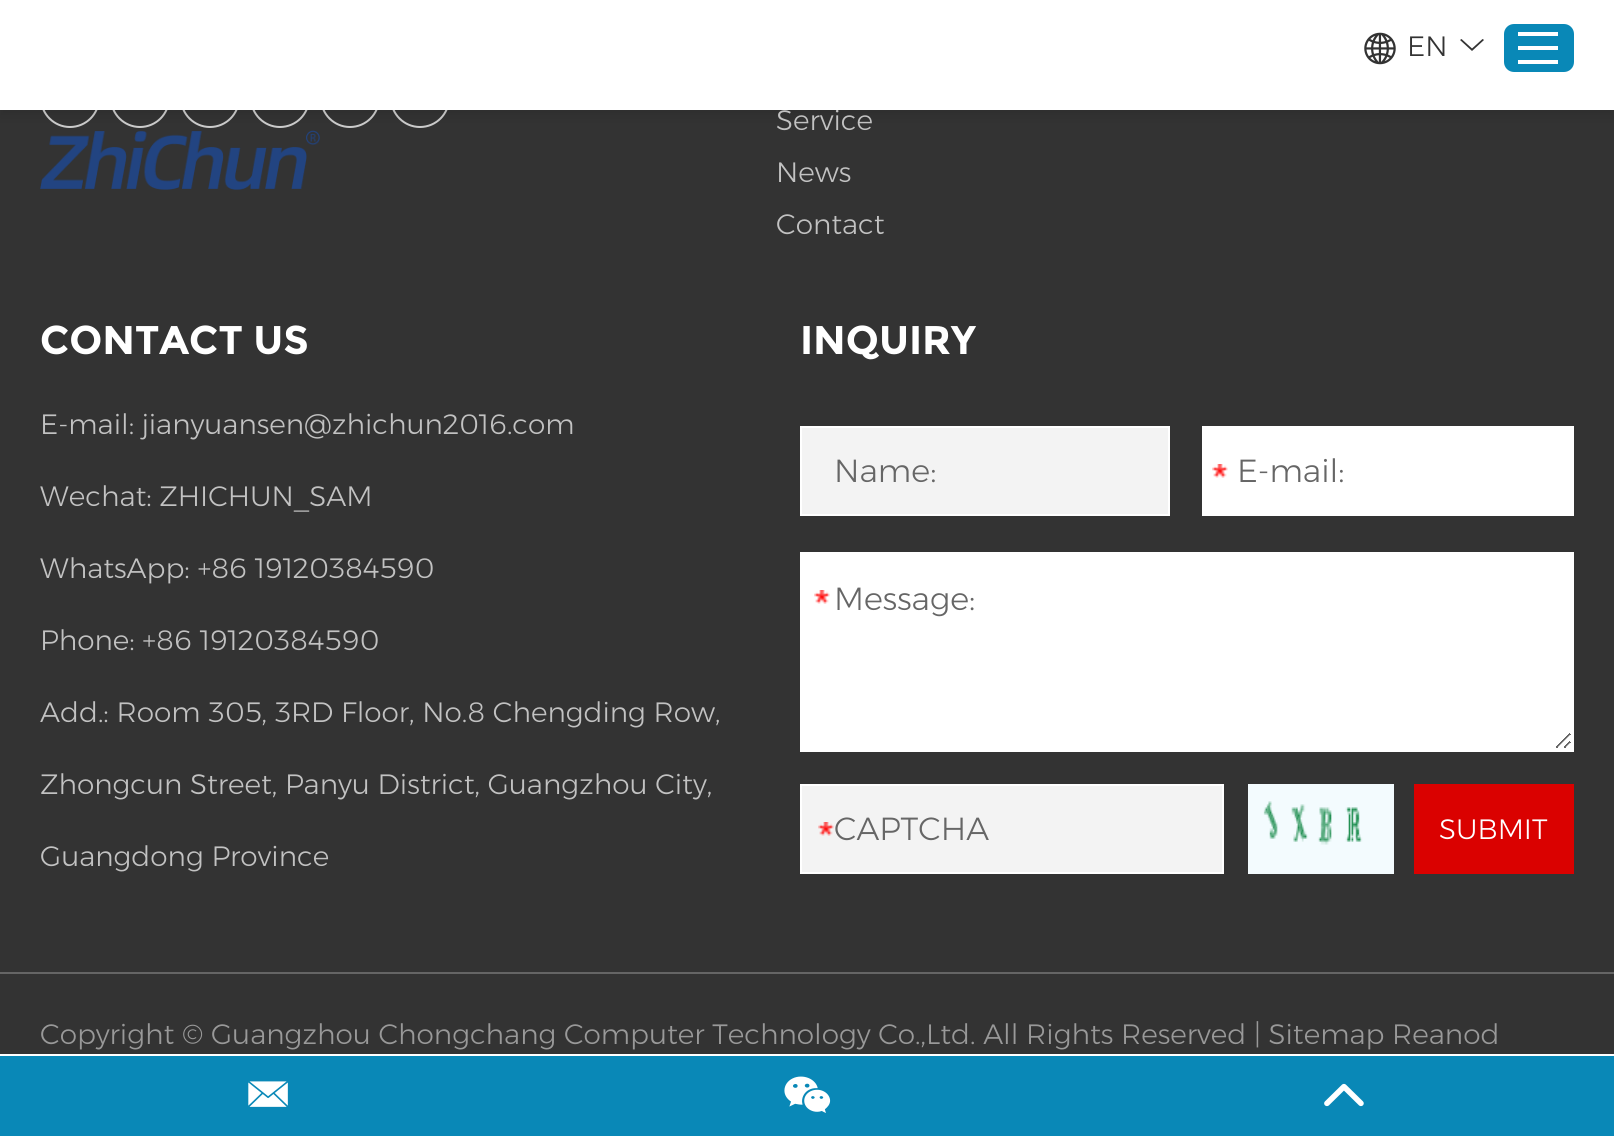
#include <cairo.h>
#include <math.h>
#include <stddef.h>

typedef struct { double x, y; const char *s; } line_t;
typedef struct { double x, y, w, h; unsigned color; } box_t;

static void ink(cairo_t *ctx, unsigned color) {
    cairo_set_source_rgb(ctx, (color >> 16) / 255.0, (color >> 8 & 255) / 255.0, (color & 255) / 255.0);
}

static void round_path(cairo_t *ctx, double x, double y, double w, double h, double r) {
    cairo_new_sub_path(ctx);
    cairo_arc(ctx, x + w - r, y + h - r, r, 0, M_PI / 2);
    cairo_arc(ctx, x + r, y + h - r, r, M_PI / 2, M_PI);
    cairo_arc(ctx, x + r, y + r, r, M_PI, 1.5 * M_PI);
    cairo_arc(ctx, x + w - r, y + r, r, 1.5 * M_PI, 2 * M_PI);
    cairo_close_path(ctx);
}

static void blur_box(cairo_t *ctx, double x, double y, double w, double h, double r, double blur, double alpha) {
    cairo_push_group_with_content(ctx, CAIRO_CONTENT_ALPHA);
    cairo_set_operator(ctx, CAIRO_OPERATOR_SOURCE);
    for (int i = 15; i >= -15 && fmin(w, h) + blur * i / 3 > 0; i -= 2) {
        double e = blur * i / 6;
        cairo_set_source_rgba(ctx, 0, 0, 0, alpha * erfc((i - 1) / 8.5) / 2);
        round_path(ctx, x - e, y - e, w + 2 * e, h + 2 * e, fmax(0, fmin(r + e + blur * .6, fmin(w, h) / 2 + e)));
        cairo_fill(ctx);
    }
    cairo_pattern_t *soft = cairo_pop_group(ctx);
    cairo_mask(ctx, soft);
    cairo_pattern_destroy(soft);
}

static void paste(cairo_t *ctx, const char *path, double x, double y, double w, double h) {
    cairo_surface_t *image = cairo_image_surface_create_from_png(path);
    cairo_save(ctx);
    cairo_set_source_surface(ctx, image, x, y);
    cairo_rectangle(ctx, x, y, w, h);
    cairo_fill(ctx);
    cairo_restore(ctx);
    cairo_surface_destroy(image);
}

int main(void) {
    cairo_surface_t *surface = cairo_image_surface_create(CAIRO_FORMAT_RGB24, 1614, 1136);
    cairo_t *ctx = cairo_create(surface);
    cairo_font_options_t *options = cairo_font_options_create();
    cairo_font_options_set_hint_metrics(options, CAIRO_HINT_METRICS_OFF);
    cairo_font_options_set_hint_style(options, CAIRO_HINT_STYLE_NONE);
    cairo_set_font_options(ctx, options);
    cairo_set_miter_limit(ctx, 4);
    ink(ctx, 0x333333);
    cairo_paint(ctx);
    cairo_arc(ctx, 70, 98, 29, 0, 2 * M_PI);
    ink(ctx, 0xCCCCCC);
    cairo_stroke(ctx);
    cairo_arc(ctx, 140, 98, 29, 0, 2 * M_PI);
    cairo_stroke(ctx);
    cairo_arc(ctx, 210, 98, 29, 0, 2 * M_PI);
    cairo_stroke(ctx);
    cairo_arc(ctx, 280, 98, 29, 0, 2 * M_PI);
    cairo_stroke(ctx);
    cairo_arc(ctx, 350, 98, 29, 0, 2 * M_PI);
    cairo_stroke(ctx);
    cairo_arc(ctx, 420, 98, 29, 0, 2 * M_PI);
    cairo_stroke(ctx);
    ink(ctx, 0x000000);
    blur_box(ctx, 0, 6, 1614, 110, 0, 6, 0.1);
    cairo_select_font_face(ctx, "Montserrat Light", CAIRO_FONT_SLANT_NORMAL, CAIRO_FONT_WEIGHT_NORMAL);
    cairo_set_font_size(ctx, 28);
    ink(ctx, 0xC2C2C2);
    cairo_move_to(ctx, 776, 130);
    cairo_show_text(ctx, "Service");
    ink(ctx, 0xFFFFFF);
    cairo_rectangle(ctx, 0, 0, 1614, 110);
    cairo_fill(ctx);
    paste(ctx, "media/1.png", 1364, 32, 32, 33);
    ink(ctx, 0x333333);
    cairo_move_to(ctx, 1407, 56);
    cairo_show_text(ctx, "EN");
    cairo_new_path(ctx);
    cairo_move_to(ctx, 1472, 51);
    cairo_line_to(ctx, 1460, 40);
    cairo_line_to(ctx, 1461.5, 39);
    cairo_line_to(ctx, 1472, 48.5);
    cairo_line_to(ctx, 1482.5, 39);
    cairo_line_to(ctx, 1484, 40);
    cairo_close_path(ctx);
    cairo_fill(ctx);
    paste(ctx, "media/2.png", 40, 130, 280, 60);
    ink(ctx, 0x0988B7);
    round_path(ctx, 1504, 24, 70, 48, 10);
    cairo_fill(ctx);
    {
        static const box_t items[] = {
            {1518, 32, 40, 4, 0xFFFFFF},
            {1518, 46, 40, 4, 0xFFFFFF},
            {1518, 60, 40, 4, 0xFFFFFF},
        };
        for (size_t i = 0; i < sizeof items / sizeof *items; i++) {
            ink(ctx, items[i].color);
            cairo_rectangle(ctx, items[i].x, items[i].y, items[i].w, items[i].h);
            cairo_fill(ctx);
        }
    }
    ink(ctx, 0xC2C2C2);
    cairo_move_to(ctx, 776, 182);
    cairo_show_text(ctx, "News");
    cairo_move_to(ctx, 776, 234);
    cairo_show_text(ctx, "Contact");
    cairo_select_font_face(ctx, "Montserrat", CAIRO_FONT_SLANT_NORMAL, CAIRO_FONT_WEIGHT_BOLD);
    cairo_set_font_size(ctx, 40);
    ink(ctx, 0xFFFFFF);
    cairo_move_to(ctx, 40, 354);
    cairo_show_text(ctx, "CONTACT US");
    cairo_select_font_face(ctx, "Montserrat Light", CAIRO_FONT_SLANT_NORMAL, CAIRO_FONT_WEIGHT_NORMAL);
    cairo_set_font_size(ctx, 28);
    ink(ctx, 0xC2C2C2);
    {
        static const line_t items[] = {
            {40, 434, "E-mail: jianyuansen@zhichun2016.com"},
            {40, 506, "Wechat: ZHICHUN_SAM"},
            {40, 578, "WhatsApp: +86 19120384590"},
            {40, 650, "Phone: +86 19120384590"},
            {40, 722, "Add.: Room 305, 3RD Floor, No.8 Chengding Row,"},
            {40, 794, "Zhongcun Street, Panyu District, Guangzhou City,"},
            {40, 866, "Guangdong Province"},
        };
        for (size_t i = 0; i < sizeof items / sizeof *items; i++) {
            cairo_move_to(ctx, items[i].x, items[i].y);
            cairo_show_text(ctx, items[i].s);
        }
    }
    cairo_select_font_face(ctx, "Montserrat", CAIRO_FONT_SLANT_NORMAL, CAIRO_FONT_WEIGHT_BOLD);
    cairo_set_font_size(ctx, 40);
    ink(ctx, 0xFFFFFF);
    cairo_move_to(ctx, 800, 354);
    cairo_show_text(ctx, "INQUIRY");
    ink(ctx, 0xF3F3F3);
    cairo_rectangle(ctx, 801, 427, 368, 88);
    cairo_fill_preserve(ctx);
    ink(ctx, 0xFFFFFF);
    cairo_stroke(ctx);
    cairo_select_font_face(ctx, "Montserrat Light", CAIRO_FONT_SLANT_NORMAL, CAIRO_FONT_WEIGHT_NORMAL);
    cairo_set_font_size(ctx, 32);
    ink(ctx, 0x666666);
    cairo_move_to(ctx, 834, 482);
    cairo_show_text(ctx, "Name:");
    ink(ctx, 0xFFFFFF);
    cairo_rectangle(ctx, 1202, 426, 372, 90);
    cairo_fill(ctx);
    paste(ctx, "media/3.png", 1212, 464, 16, 14);
    ink(ctx, 0x666666);
    cairo_move_to(ctx, 1237, 482);
    cairo_show_text(ctx, "E-mail:");
    ink(ctx, 0xFFFFFF);
    cairo_rectangle(ctx, 800, 552, 774, 200);
    cairo_fill(ctx);
    paste(ctx, "media/4.png", 814, 590, 757, 158);
    ink(ctx, 0x666666);
    cairo_move_to(ctx, 834, 610);
    cairo_show_text(ctx, "Message:");
    ink(ctx, 0xF3F3F3);
    cairo_rectangle(ctx, 802, 786, 420, 86);
    cairo_fill(ctx);
    paste(ctx, "media/5.png", 818, 822, 16, 14);
    cairo_rectangle(ctx, 801, 785, 422, 88);
    ink(ctx, 0xFFFFFF);
    cairo_stroke(ctx);
    ink(ctx, 0x666666);
    cairo_move_to(ctx, 834, 840);
    cairo_show_text(ctx, "CAPTCHA");
    paste(ctx, "media/6.png", 1248, 784, 146, 90);
    ink(ctx, 0xDA0100);
    cairo_rectangle(ctx, 1414, 784, 160, 90);
    cairo_fill(ctx);
    cairo_set_font_size(ctx, 28);
    ink(ctx, 0xFFFFFF);
    cairo_move_to(ctx, 1439, 839);
    cairo_show_text(ctx, "SUBMIT");
    ink(ctx, 0x656565);
    cairo_rectangle(ctx, 0, 972, 1614, 2);
    cairo_fill(ctx);
    ink(ctx, 0x999999);
    cairo_move_to(ctx, 40, 1044);
    cairo_show_text(ctx, "Copyright © Guangzhou Chongchang Computer Technology Co.,Ltd. All Rights Reserved | Sitemap Reanod");
    ink(ctx, 0xFFFFFF);
    cairo_rectangle(ctx, 0, 1054, 1614, 2);
    cairo_fill(ctx);
    ink(ctx, 0x0988B7);
    cairo_rectangle(ctx, 0, 1056, 538, 80);
    cairo_fill(ctx);
    paste(ctx, "media/7.png", 248, 1081, 40, 26);
    cairo_rectangle(ctx, 538, 1056, 1076, 80);
    cairo_fill(ctx);
    paste(ctx, "media/8.png", 1324, 1083, 40, 24);
    paste(ctx, "media/9.png", 784, 1076, 47, 37);
    cairo_surface_write_to_png(surface, "image.png");
    cairo_font_options_destroy(options);
    cairo_destroy(ctx);
    cairo_surface_destroy(surface);
    return 0;
}
